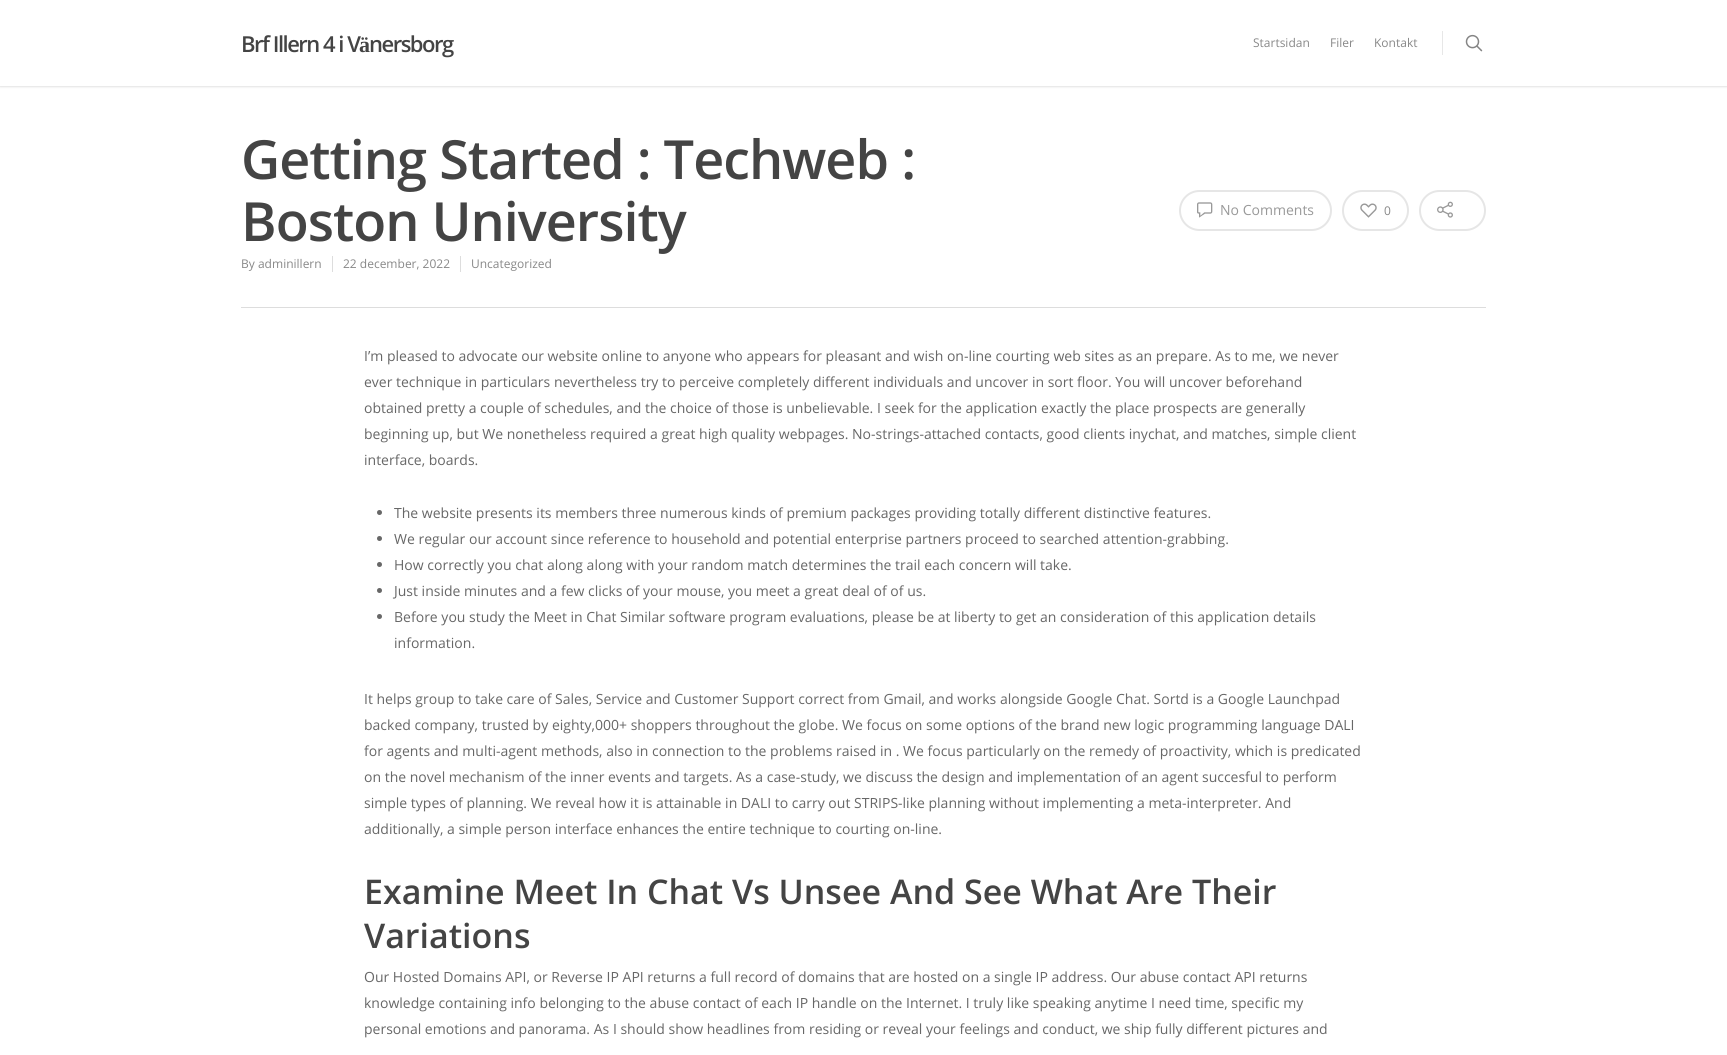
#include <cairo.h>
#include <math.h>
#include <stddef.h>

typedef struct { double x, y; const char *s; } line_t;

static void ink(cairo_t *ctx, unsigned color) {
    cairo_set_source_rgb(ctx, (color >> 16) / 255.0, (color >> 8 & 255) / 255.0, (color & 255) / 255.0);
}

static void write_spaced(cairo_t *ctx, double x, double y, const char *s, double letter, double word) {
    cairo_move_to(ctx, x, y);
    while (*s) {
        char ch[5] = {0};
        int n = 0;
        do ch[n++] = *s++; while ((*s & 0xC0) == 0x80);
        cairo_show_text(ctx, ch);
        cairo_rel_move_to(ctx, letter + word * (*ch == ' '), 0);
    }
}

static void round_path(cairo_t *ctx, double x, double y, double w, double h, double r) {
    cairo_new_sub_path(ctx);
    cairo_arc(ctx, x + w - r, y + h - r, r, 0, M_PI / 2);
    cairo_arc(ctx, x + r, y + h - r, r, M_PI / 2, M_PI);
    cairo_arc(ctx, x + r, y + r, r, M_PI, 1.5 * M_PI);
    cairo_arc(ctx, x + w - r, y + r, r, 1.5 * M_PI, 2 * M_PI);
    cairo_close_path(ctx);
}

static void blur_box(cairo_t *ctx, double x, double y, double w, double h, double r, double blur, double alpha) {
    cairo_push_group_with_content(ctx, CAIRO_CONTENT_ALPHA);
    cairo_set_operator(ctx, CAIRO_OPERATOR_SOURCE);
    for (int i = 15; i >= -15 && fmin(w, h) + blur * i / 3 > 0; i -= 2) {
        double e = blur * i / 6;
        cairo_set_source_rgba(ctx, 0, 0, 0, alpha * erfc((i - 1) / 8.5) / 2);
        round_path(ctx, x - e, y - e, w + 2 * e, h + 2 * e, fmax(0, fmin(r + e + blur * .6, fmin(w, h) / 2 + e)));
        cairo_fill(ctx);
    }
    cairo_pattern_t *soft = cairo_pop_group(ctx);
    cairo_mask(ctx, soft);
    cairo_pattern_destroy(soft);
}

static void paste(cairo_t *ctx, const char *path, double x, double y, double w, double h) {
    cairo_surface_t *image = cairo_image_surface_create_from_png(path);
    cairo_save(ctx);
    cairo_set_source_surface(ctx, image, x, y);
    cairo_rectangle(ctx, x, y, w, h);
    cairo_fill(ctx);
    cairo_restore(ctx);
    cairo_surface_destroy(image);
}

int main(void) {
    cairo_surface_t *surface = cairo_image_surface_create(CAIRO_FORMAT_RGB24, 1727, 1055);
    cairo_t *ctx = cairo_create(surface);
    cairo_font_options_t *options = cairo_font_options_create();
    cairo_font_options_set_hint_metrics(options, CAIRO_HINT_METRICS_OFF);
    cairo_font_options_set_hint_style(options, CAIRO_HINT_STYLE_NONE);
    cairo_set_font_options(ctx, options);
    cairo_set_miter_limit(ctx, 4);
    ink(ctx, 0xFFFFFF);
    cairo_paint(ctx);
    ink(ctx, 0x000000);
    blur_box(ctx, 0, 0, 1727, 86, 0, 1.5, 0.22);
    ink(ctx, 0xFFFFFF);
    cairo_rectangle(ctx, 0, 0, 1727, 86);
    cairo_fill(ctx);
    cairo_select_font_face(ctx, "Open Sans SemiBold", CAIRO_FONT_SLANT_NORMAL, CAIRO_FONT_WEIGHT_NORMAL);
    cairo_set_font_size(ctx, 22);
    ink(ctx, 0x444444);
    write_spaced(ctx, 241, 52, "Brf Illern 4 i V", -1.5, 0);
    cairo_select_font_face(ctx, "Liberation Serif", CAIRO_FONT_SLANT_NORMAL, CAIRO_FONT_WEIGHT_BOLD);
    write_spaced(ctx, 359, 52, "ä", -1.5, 0);
    cairo_select_font_face(ctx, "Open Sans SemiBold", CAIRO_FONT_SLANT_NORMAL, CAIRO_FONT_WEIGHT_NORMAL);
    write_spaced(ctx, 369, 52, "nersborg", -1.5, 0);
    cairo_select_font_face(ctx, "Open Sans", CAIRO_FONT_SLANT_NORMAL, CAIRO_FONT_WEIGHT_NORMAL);
    cairo_set_font_size(ctx, 12);
    ink(ctx, 0x888888);
    {
        static const line_t items[] = {
            {1253, 47, "Startsidan"},
            {1330, 47, "Filer"},
            {1374, 47, "Kontakt"},
        };
        for (size_t i = 0; i < sizeof items / sizeof *items; i++) {
            cairo_move_to(ctx, items[i].x, items[i].y);
            cairo_show_text(ctx, items[i].s);
        }
    }
    ink(ctx, 0xE7E7E7);
    cairo_rectangle(ctx, 1442, 31, 1, 24);
    cairo_fill(ctx);
    paste(ctx, "media/1.png", 1465, 34, 18, 18);
    ink(ctx, 0xDDDDDD);
    cairo_rectangle(ctx, 241, 307, 1245, 1);
    cairo_fill(ctx);
    cairo_select_font_face(ctx, "Open Sans SemiBold", CAIRO_FONT_SLANT_NORMAL, CAIRO_FONT_WEIGHT_NORMAL);
    cairo_set_font_size(ctx, 54);
    ink(ctx, 0x444444);
    write_spaced(ctx, 241, 179, "Getting Started : Techweb :", -1, 0);
    write_spaced(ctx, 241, 241, "Boston University", -1, 0);
    round_path(ctx, 1180, 191, 151, 39, 19.5);
    ink(ctx, 0xE6E6E6);
    cairo_stroke(ctx);
    paste(ctx, "media/2.png", 1197, 202, 16, 16);
    cairo_select_font_face(ctx, "Open Sans", CAIRO_FONT_SLANT_NORMAL, CAIRO_FONT_WEIGHT_NORMAL);
    cairo_set_font_size(ctx, 14);
    ink(ctx, 0x999999);
    cairo_move_to(ctx, 1220, 215);
    cairo_show_text(ctx, "No Comments");
    round_path(ctx, 1343, 191, 65, 39, 19.5);
    ink(ctx, 0xE6E6E6);
    cairo_stroke(ctx);
    paste(ctx, "media/3.png", 1360, 203, 17, 15);
    cairo_set_font_size(ctx, 12);
    ink(ctx, 0x888888);
    cairo_move_to(ctx, 1384, 215);
    cairo_show_text(ctx, "0");
    round_path(ctx, 1420, 191, 65, 39, 19.5);
    ink(ctx, 0xE6E6E6);
    cairo_stroke(ctx);
    paste(ctx, "media/4.png", 1437, 201, 16, 17);
    ink(ctx, 0x888888);
    cairo_move_to(ctx, 241, 268);
    cairo_show_text(ctx, "By adminillern");
    ink(ctx, 0xDDDDDD);
    cairo_rectangle(ctx, 332, 256, 1, 16);
    cairo_fill(ctx);
    ink(ctx, 0x888888);
    cairo_move_to(ctx, 343, 268);
    cairo_show_text(ctx, "22 december, 2022");
    ink(ctx, 0xDDDDDD);
    cairo_rectangle(ctx, 460, 256, 1, 16);
    cairo_fill(ctx);
    ink(ctx, 0x888888);
    cairo_move_to(ctx, 471, 268);
    cairo_show_text(ctx, "Uncategorized");
    cairo_set_font_size(ctx, 14);
    ink(ctx, 0x676767);
    {
        static const line_t items[] = {
            {364, 361, "I’m pleased to advocate our website online to anyone who appears for pleasant and wish on-line courting web sites as an prepare. As to me, we never"},
            {364, 387, "ever technique in particulars nevertheless try to perceive completely different individuals and uncover in sort floor. You will uncover beforehand"},
            {364, 413, "obtained pretty a couple of schedules, and the choice of those is unbelievable. I seek for the application exactly the place prospects are generally"},
            {364, 439, "beginning up, but We nonetheless required a great high quality webpages. No-strings-attached contacts, good clients inychat, and matches, simple client"},
            {364, 465, "interface, boards."},
        };
        for (size_t i = 0; i < sizeof items / sizeof *items; i++) {
            cairo_move_to(ctx, items[i].x, items[i].y);
            cairo_show_text(ctx, items[i].s);
        }
    }
    cairo_new_path(ctx);
    cairo_arc(ctx, 379.5, 512.5, 2.5, 0, 2 * M_PI);
    cairo_fill(ctx);
    cairo_move_to(ctx, 394, 518);
    cairo_show_text(ctx, "The website presents its members three numerous kinds of premium packages providing totally different distinctive features.");
    cairo_new_path(ctx);
    cairo_arc(ctx, 379.5, 538.5, 2.5, 0, 2 * M_PI);
    cairo_fill(ctx);
    cairo_move_to(ctx, 394, 544);
    cairo_show_text(ctx, "We regular our account since reference to household and potential enterprise partners proceed to searched attention-grabbing.");
    cairo_new_path(ctx);
    cairo_arc(ctx, 379.5, 564.5, 2.5, 0, 2 * M_PI);
    cairo_fill(ctx);
    cairo_move_to(ctx, 394, 570);
    cairo_show_text(ctx, "How correctly you chat along along with your random match determines the trail each concern will take.");
    cairo_new_path(ctx);
    cairo_arc(ctx, 379.5, 590.5, 2.5, 0, 2 * M_PI);
    cairo_fill(ctx);
    cairo_move_to(ctx, 394, 596);
    cairo_show_text(ctx, "Just inside minutes and a few clicks of your mouse, you meet a great deal of of us.");
    cairo_new_path(ctx);
    cairo_arc(ctx, 379.5, 616.5, 2.5, 0, 2 * M_PI);
    cairo_fill(ctx);
    {
        static const line_t items[] = {
            {394, 622, "Before you study the Meet in Chat Similar software program evaluations, please be at liberty to get an consideration of this application details"},
            {394, 648, "information."},
            {364, 704, "It helps group to take care of Sales, Service and Customer Support correct from Gmail, and works alongside Google Chat. Sortd is a Google Launchpad"},
            {364, 730, "backed company, trusted by eighty,000+ shoppers throughout the globe. We focus on some options of the brand new logic programming language DALI"},
            {364, 756, "for agents and multi-agent methods, also in connection to the problems raised in . We focus particularly on the remedy of proactivity, which is predicated"},
            {364, 782, "on the novel mechanism of the inner events and targets. As a case-study, we discuss the design and implementation of an agent succesful to perform"},
            {364, 808, "simple types of planning. We reveal how it is attainable in DALI to carry out STRIPS-like planning without implementing a meta-interpreter. And"},
            {364, 834, "additionally, a simple person interface enhances the entire technique to courting on-line."},
        };
        for (size_t i = 0; i < sizeof items / sizeof *items; i++) {
            cairo_move_to(ctx, items[i].x, items[i].y);
            cairo_show_text(ctx, items[i].s);
        }
    }
    cairo_select_font_face(ctx, "Open Sans SemiBold", CAIRO_FONT_SLANT_NORMAL, CAIRO_FONT_WEIGHT_NORMAL);
    cairo_set_font_size(ctx, 34);
    ink(ctx, 0x444444);
    cairo_move_to(ctx, 364, 904);
    cairo_show_text(ctx, "Examine Meet In Chat Vs Unsee And See What Are Their");
    cairo_move_to(ctx, 364, 948);
    cairo_show_text(ctx, "Variations");
    cairo_select_font_face(ctx, "Open Sans", CAIRO_FONT_SLANT_NORMAL, CAIRO_FONT_WEIGHT_NORMAL);
    cairo_set_font_size(ctx, 14);
    ink(ctx, 0x676767);
    {
        static const line_t items[] = {
            {364, 982, "Our Hosted Domains API, or Reverse IP API returns a full record of domains that are hosted on a single IP address. Our abuse contact API returns"},
            {364, 1008, "knowledge containing info belonging to the abuse contact of each IP handle on the Internet. I truly like speaking anytime I need time, specific my"},
            {364, 1034, "personal emotions and panorama. As I should show headlines from residing or reveal your feelings and conduct, we ship fully different pictures and"},
        };
        for (size_t i = 0; i < sizeof items / sizeof *items; i++) {
            cairo_move_to(ctx, items[i].x, items[i].y);
            cairo_show_text(ctx, items[i].s);
        }
    }
    cairo_surface_write_to_png(surface, "image.png");
    cairo_font_options_destroy(options);
    cairo_destroy(ctx);
    cairo_surface_destroy(surface);
    return 0;
}
